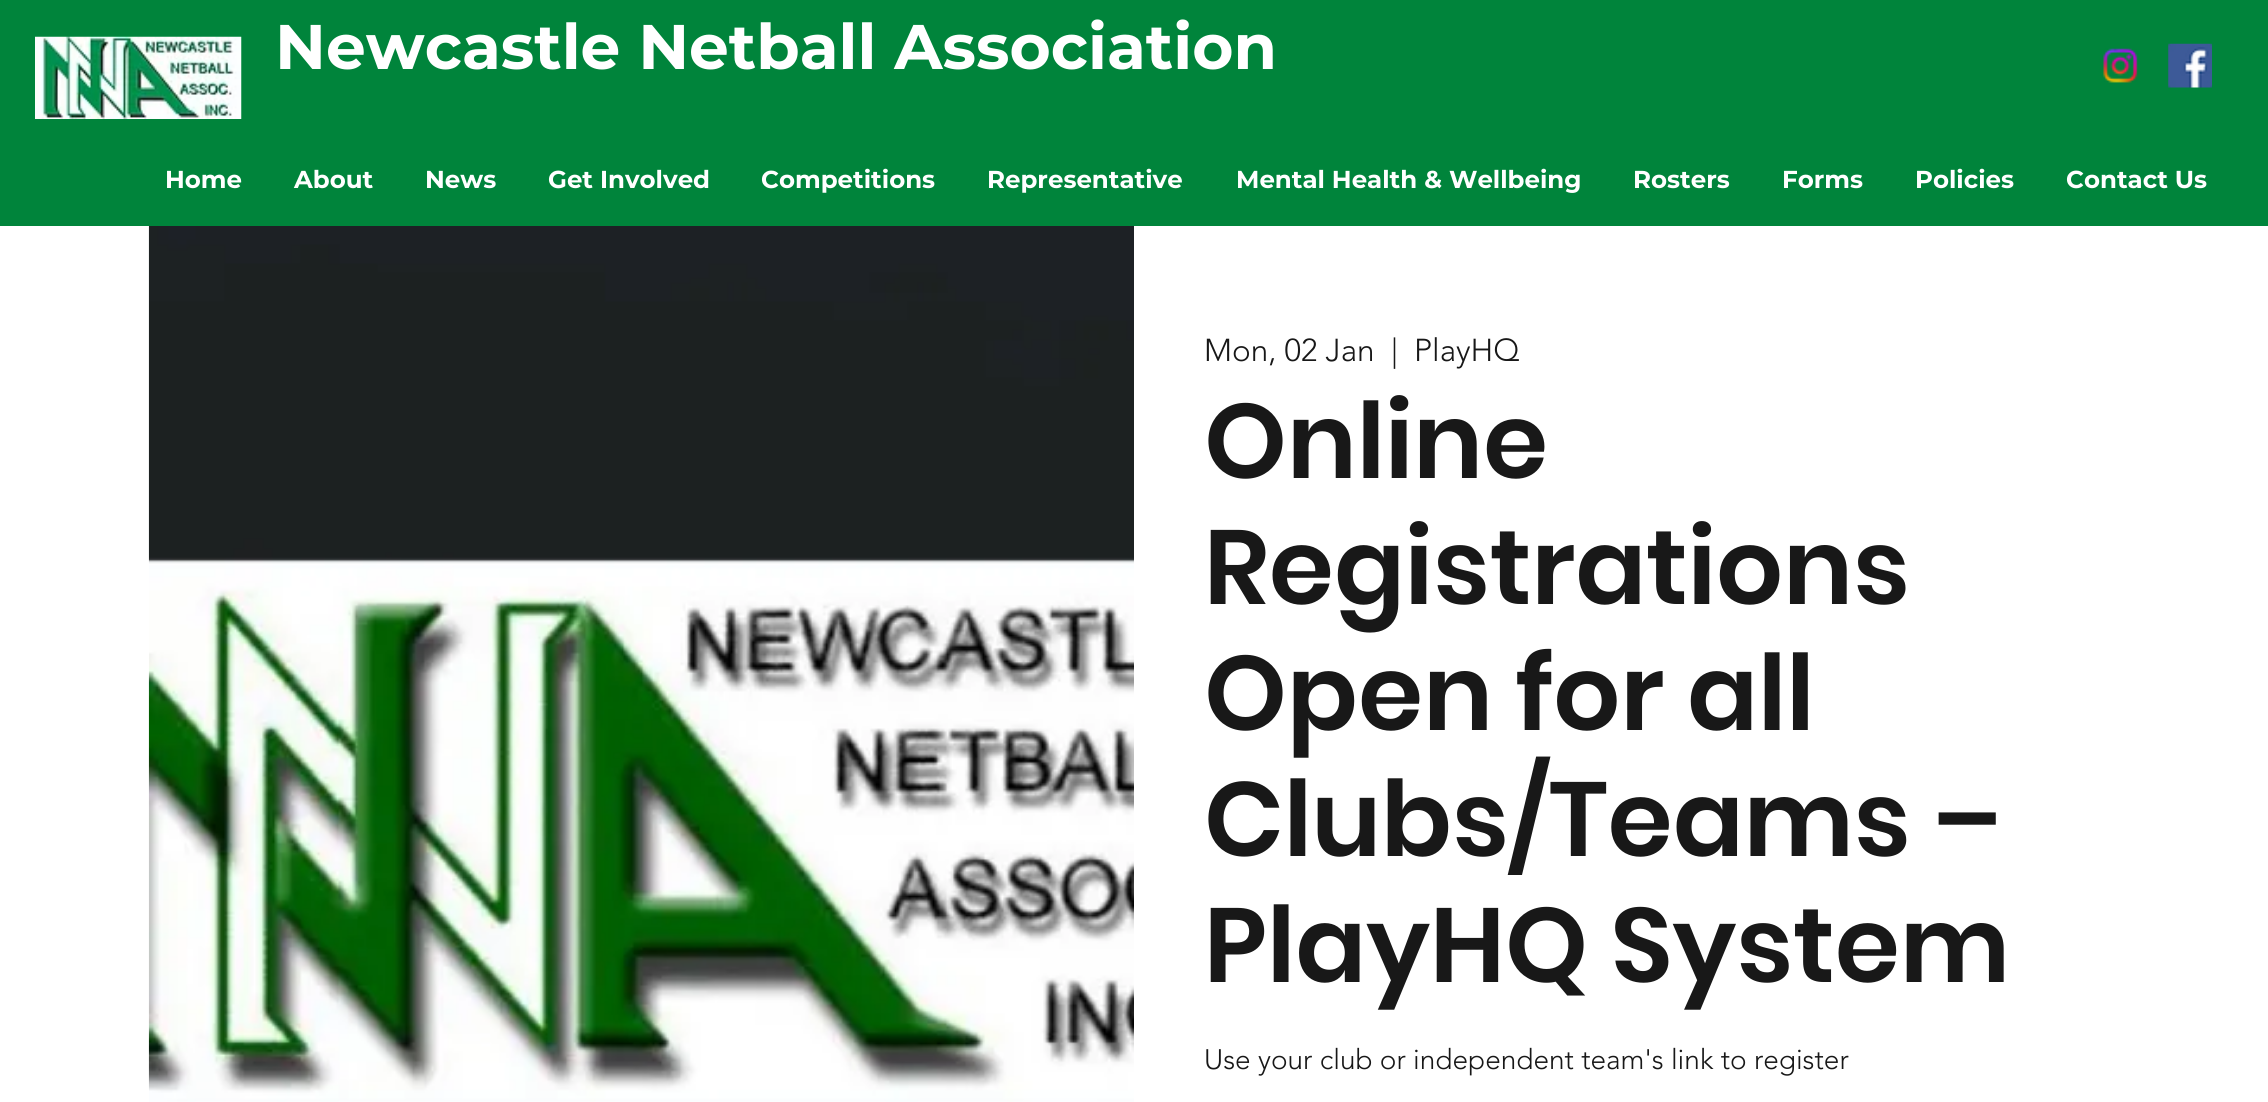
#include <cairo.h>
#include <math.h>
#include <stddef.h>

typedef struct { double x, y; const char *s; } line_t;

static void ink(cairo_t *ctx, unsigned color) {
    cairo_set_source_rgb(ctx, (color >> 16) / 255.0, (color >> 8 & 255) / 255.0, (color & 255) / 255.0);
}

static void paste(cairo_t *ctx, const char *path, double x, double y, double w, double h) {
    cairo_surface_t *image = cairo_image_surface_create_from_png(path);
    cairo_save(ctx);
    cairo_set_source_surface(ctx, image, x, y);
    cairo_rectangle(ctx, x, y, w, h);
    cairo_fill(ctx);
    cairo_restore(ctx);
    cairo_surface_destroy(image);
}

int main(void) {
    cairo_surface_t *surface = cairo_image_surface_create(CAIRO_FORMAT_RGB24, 2268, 1102);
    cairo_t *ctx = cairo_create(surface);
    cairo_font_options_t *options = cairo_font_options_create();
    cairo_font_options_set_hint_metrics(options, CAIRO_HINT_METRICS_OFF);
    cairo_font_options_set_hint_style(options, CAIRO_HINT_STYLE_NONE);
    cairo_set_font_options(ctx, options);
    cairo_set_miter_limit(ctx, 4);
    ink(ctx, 0xFFFFFF);
    cairo_paint(ctx);
    ink(ctx, 0x00843B);
    cairo_rectangle(ctx, 0, 0, 2268, 226);
    cairo_fill(ctx);
    paste(ctx, "media/1.png", 35, 36, 207, 83);
    cairo_select_font_face(ctx, "Montserrat", CAIRO_FONT_SLANT_NORMAL, CAIRO_FONT_WEIGHT_BOLD);
    cairo_set_font_size(ctx, 63);
    ink(ctx, 0xFFFFFF);
    cairo_move_to(ctx, 275, 69);
    cairo_show_text(ctx, "Newcastle Netball Association");
    paste(ctx, "media/2.png", 2103, 48, 35, 35);
    paste(ctx, "media/3.png", 2168, 43, 44, 45);
    cairo_set_font_size(ctx, 24.5);
    {
        static const line_t items[] = {
            {165, 188, "Home"},
            {294, 188, "About"},
            {425, 188, "News"},
            {548, 188, "Get Involved"},
            {761, 188, "Competitions"},
            {987, 188, "Representative"},
            {1236, 188, "Mental Health & Wellbeing"},
            {1633, 188, "Rosters"},
            {1782, 188, "Forms"},
            {1915, 188, "Policies"},
            {2066, 188, "Contact Us"},
        };
        for (size_t i = 0; i < sizeof items / sizeof *items; i++) {
            cairo_move_to(ctx, items[i].x, items[i].y);
            cairo_show_text(ctx, items[i].s);
        }
    }
    paste(ctx, "media/4.png", 148, 226, 986, 876);
    cairo_select_font_face(ctx, "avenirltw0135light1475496 Light", CAIRO_FONT_SLANT_NORMAL, CAIRO_FONT_WEIGHT_NORMAL);
    cairo_set_font_size(ctx, 31.5);
    ink(ctx, 0x181818);
    {
        static const line_t items[] = {
            {1204, 361, "Mon, 02 Jan"},
            {1391, 361, "|"},
            {1414, 361, "PlayHQ"},
        };
        for (size_t i = 0; i < sizeof items / sizeof *items; i++) {
            cairo_move_to(ctx, items[i].x, items[i].y);
            cairo_show_text(ctx, items[i].s);
        }
    }
    cairo_select_font_face(ctx, "Poppins SemiBold", CAIRO_FONT_SLANT_NORMAL, CAIRO_FONT_WEIGHT_NORMAL);
    cairo_set_font_size(ctx, 105);
    {
        static const line_t items[] = {
            {1204, 478, "Online"},
            {1204, 604, "Registrations"},
            {1204, 730, "Open for all"},
            {1204, 856, "Clubs/Teams –"},
            {1204, 982, "PlayHQ System"},
        };
        for (size_t i = 0; i < sizeof items / sizeof *items; i++) {
            cairo_move_to(ctx, items[i].x, items[i].y);
            cairo_show_text(ctx, items[i].s);
        }
    }
    cairo_select_font_face(ctx, "avenirltw0135light1475496 Light", CAIRO_FONT_SLANT_NORMAL, CAIRO_FONT_WEIGHT_NORMAL);
    cairo_set_font_size(ctx, 28);
    cairo_move_to(ctx, 1204, 1069);
    cairo_show_text(ctx, "Use your club or independent team's link to register");
    cairo_surface_write_to_png(surface, "image.png");
    cairo_font_options_destroy(options);
    cairo_destroy(ctx);
    cairo_surface_destroy(surface);
    return 0;
}
